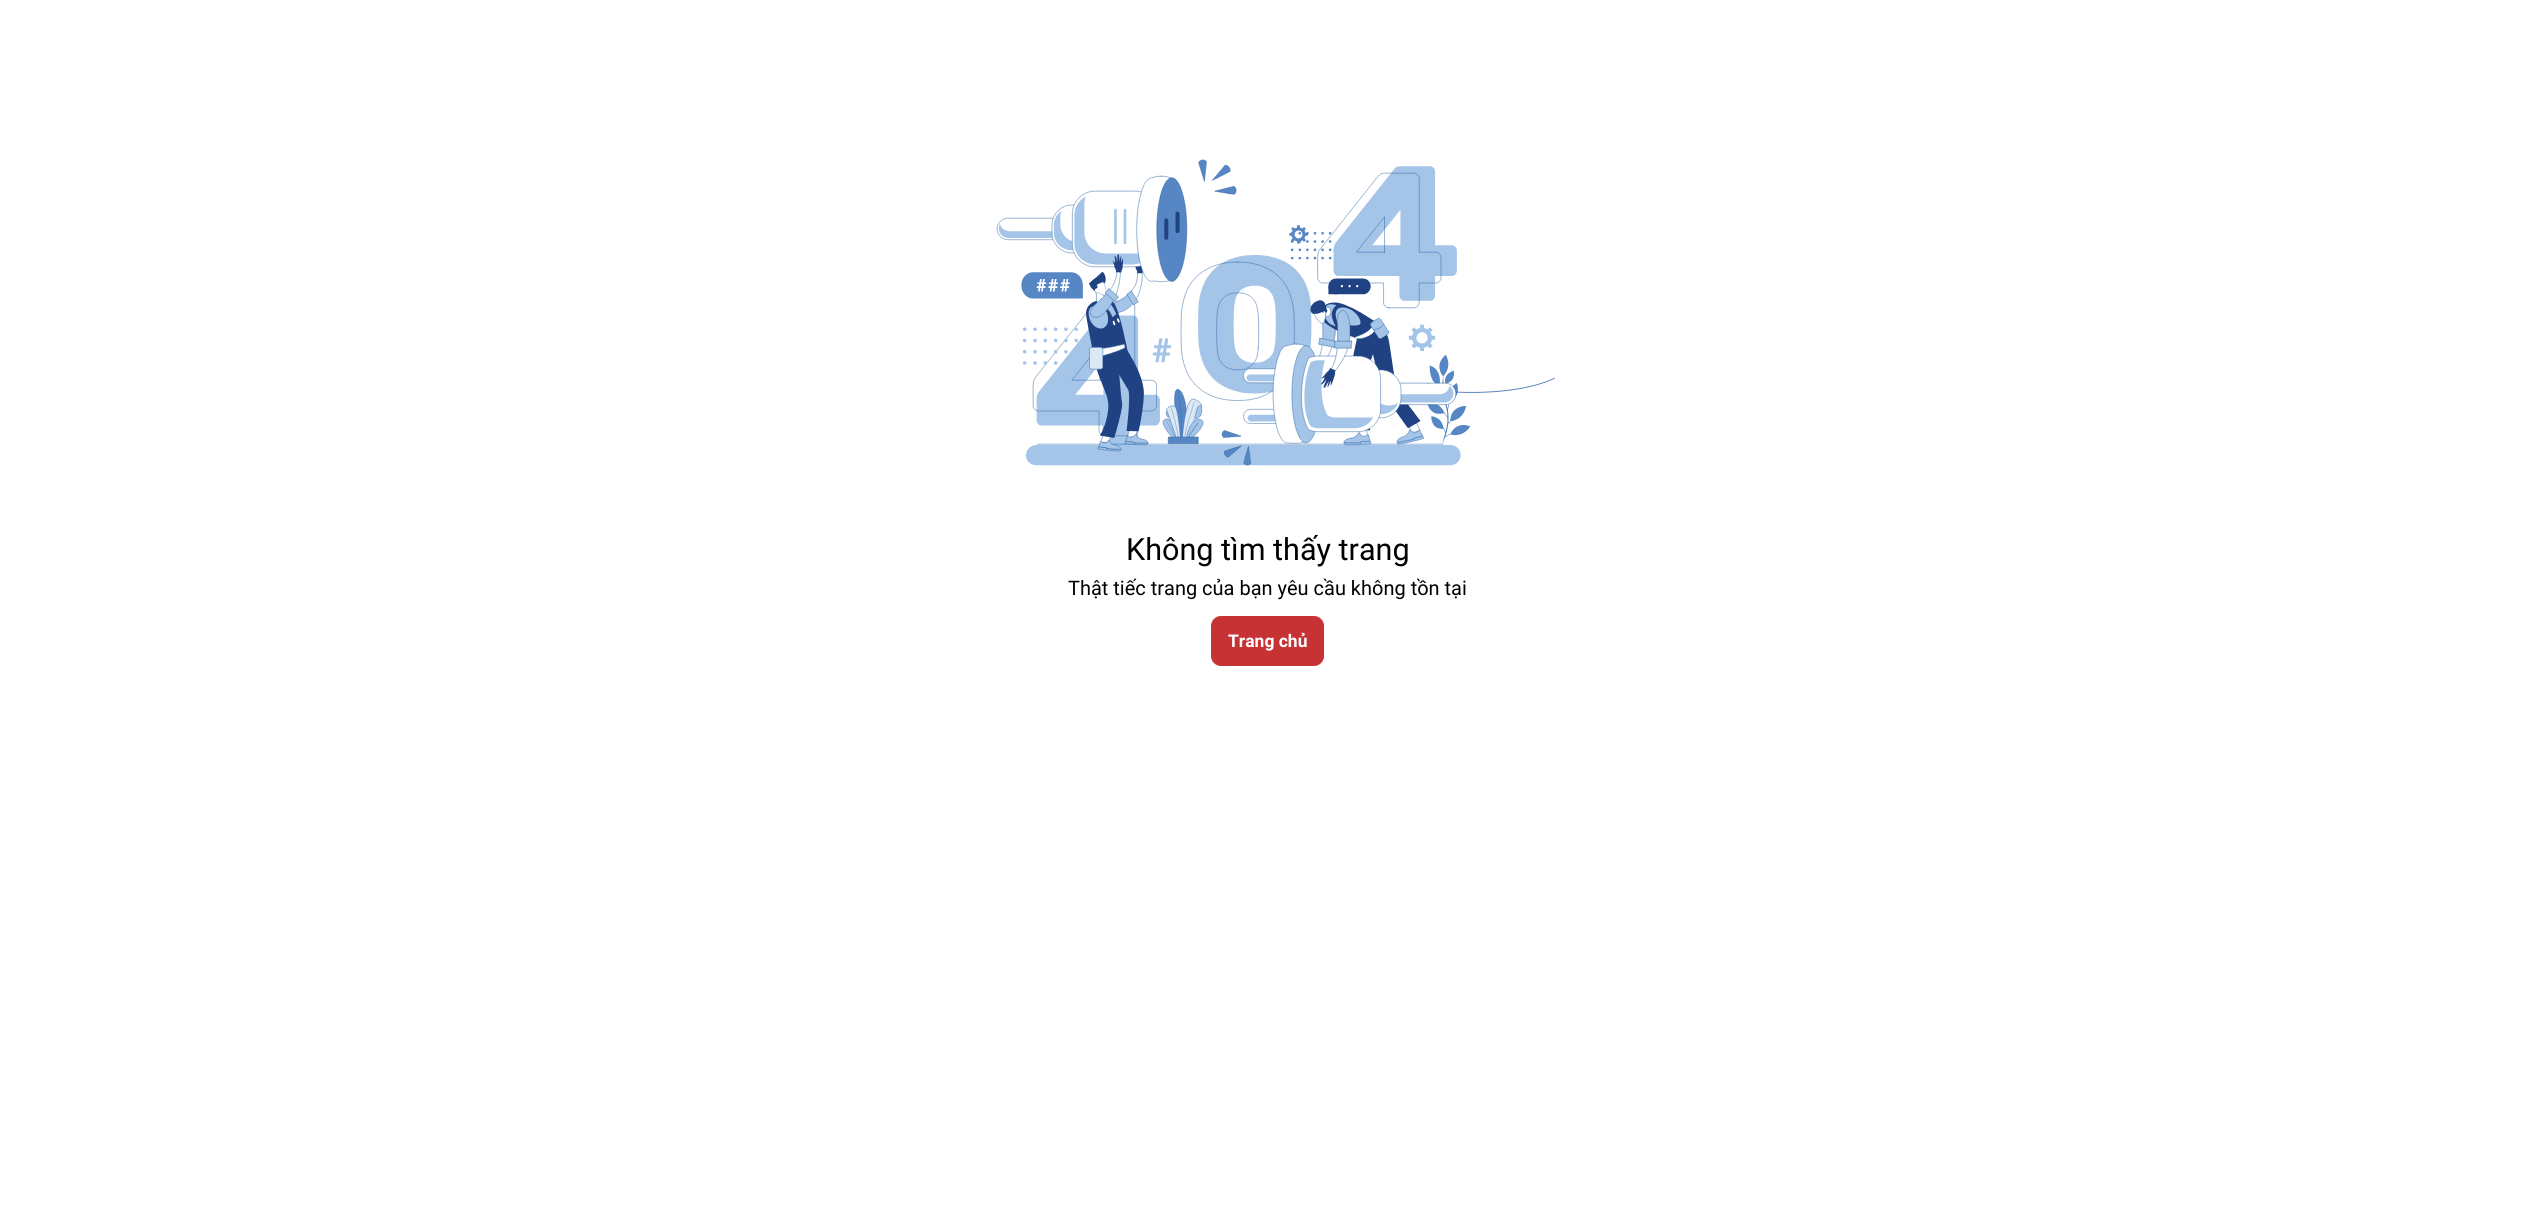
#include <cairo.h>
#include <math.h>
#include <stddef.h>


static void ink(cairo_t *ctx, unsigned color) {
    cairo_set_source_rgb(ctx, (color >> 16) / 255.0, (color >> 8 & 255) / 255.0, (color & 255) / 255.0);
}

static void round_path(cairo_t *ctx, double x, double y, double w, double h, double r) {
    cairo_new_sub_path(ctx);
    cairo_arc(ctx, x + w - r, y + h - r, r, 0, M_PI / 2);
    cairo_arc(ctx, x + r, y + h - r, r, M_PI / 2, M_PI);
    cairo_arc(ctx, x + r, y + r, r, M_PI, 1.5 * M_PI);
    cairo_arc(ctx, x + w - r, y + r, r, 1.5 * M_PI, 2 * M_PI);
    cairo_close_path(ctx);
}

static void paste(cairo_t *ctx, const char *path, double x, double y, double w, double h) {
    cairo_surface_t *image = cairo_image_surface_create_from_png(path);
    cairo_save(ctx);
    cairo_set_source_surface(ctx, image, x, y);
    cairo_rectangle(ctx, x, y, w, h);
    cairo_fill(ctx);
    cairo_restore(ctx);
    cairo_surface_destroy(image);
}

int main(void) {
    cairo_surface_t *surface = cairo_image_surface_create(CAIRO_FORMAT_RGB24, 2535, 1219);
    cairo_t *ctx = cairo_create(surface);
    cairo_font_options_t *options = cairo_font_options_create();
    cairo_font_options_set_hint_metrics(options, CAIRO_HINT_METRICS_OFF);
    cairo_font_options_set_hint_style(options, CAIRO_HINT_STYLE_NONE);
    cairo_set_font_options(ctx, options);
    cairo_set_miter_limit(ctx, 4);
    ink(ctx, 0xFFFFFF);
    cairo_paint(ctx);
    paste(ctx, "media/1.png", 996, 159, 559, 307);
    cairo_select_font_face(ctx, "Roboto", CAIRO_FONT_SLANT_NORMAL, CAIRO_FONT_WEIGHT_NORMAL);
    cairo_set_font_size(ctx, 30.6);
    ink(ctx, 0x000000);
    cairo_move_to(ctx, 1126, 560);
    cairo_show_text(ctx, "Không tìm thấy trang");
    cairo_set_font_size(ctx, 20);
    cairo_move_to(ctx, 1068, 595);
    cairo_show_text(ctx, "Thật tiếc trang của bạn yêu cầu không tồn tại");
    ink(ctx, 0xC73234);
    round_path(ctx, 1211.5, 616.5, 112, 49, 9.5);
    cairo_fill_preserve(ctx);
    cairo_set_line_width(ctx, 1);
    cairo_stroke(ctx);
    cairo_select_font_face(ctx, "Roboto", CAIRO_FONT_SLANT_NORMAL, CAIRO_FONT_WEIGHT_BOLD);
    cairo_set_font_size(ctx, 17.5);
    ink(ctx, 0xFFFFFF);
    cairo_move_to(ctx, 1228, 647);
    cairo_show_text(ctx, "Trang chủ");
    cairo_surface_write_to_png(surface, "image.png");
    cairo_font_options_destroy(options);
    cairo_destroy(ctx);
    cairo_surface_destroy(surface);
    return 0;
}
